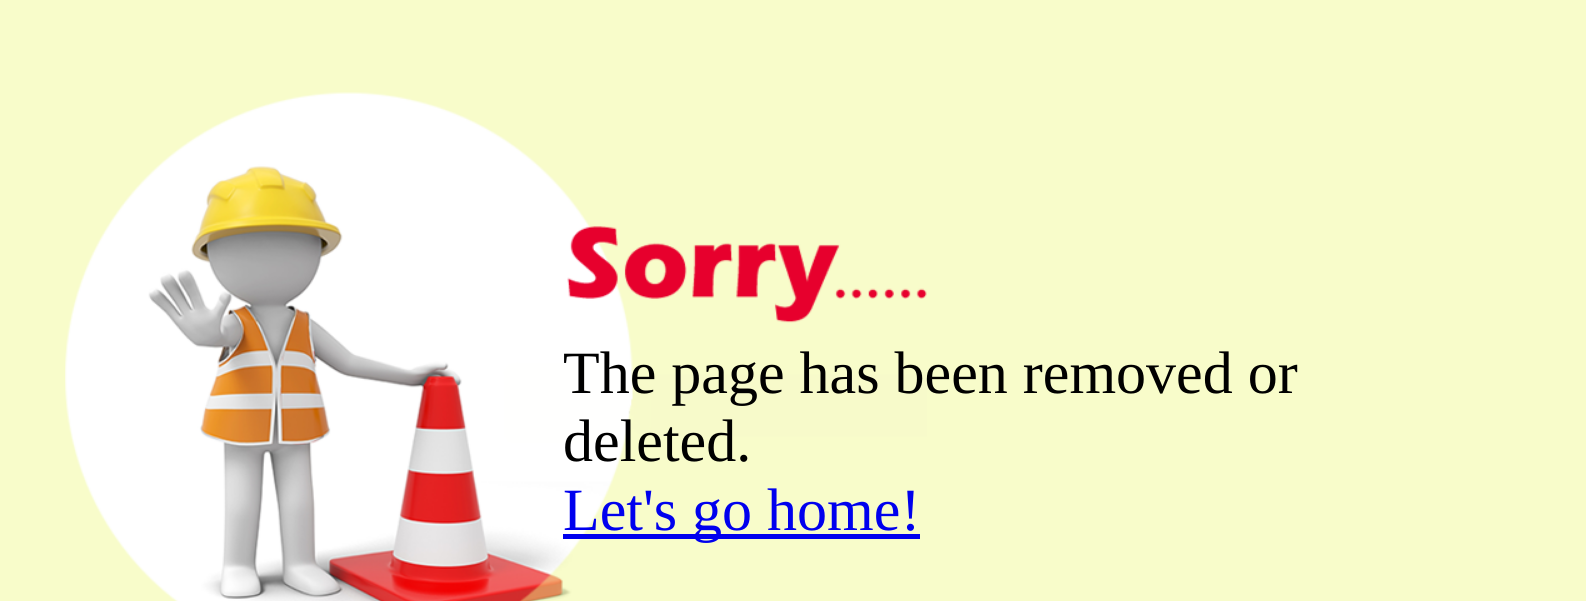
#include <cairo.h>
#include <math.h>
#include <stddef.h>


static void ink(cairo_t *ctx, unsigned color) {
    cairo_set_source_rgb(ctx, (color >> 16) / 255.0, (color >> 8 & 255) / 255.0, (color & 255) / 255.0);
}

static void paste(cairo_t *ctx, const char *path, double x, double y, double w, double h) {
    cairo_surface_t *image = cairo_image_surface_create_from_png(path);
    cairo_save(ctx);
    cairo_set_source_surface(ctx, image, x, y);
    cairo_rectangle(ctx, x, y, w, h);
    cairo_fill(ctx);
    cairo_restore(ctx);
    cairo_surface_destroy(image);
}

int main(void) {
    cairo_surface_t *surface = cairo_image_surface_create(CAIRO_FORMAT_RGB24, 1586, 601);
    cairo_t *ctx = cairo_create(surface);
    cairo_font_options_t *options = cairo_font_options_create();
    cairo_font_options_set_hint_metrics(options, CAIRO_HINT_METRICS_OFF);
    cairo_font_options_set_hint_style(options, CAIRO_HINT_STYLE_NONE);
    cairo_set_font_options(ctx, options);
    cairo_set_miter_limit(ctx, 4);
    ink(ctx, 0xF8FCCA);
    cairo_paint(ctx);
    paste(ctx, "media/1.png", 65, 92, 862, 509);
    cairo_select_font_face(ctx, "Liberation Serif", CAIRO_FONT_SLANT_NORMAL, CAIRO_FONT_WEIGHT_NORMAL);
    cairo_set_font_size(ctx, 60);
    ink(ctx, 0x000000);
    cairo_move_to(ctx, 563, 393);
    cairo_show_text(ctx, "The page has been removed or");
    cairo_move_to(ctx, 563, 461);
    cairo_show_text(ctx, "deleted.");
    ink(ctx, 0x0000EE);
    cairo_rectangle(ctx, 563, 534, 357, 5);
    cairo_fill(ctx);
    cairo_move_to(ctx, 563, 530);
    cairo_show_text(ctx, "Let's go home!");
    cairo_surface_write_to_png(surface, "image.png");
    cairo_font_options_destroy(options);
    cairo_destroy(ctx);
    cairo_surface_destroy(surface);
    return 0;
}
